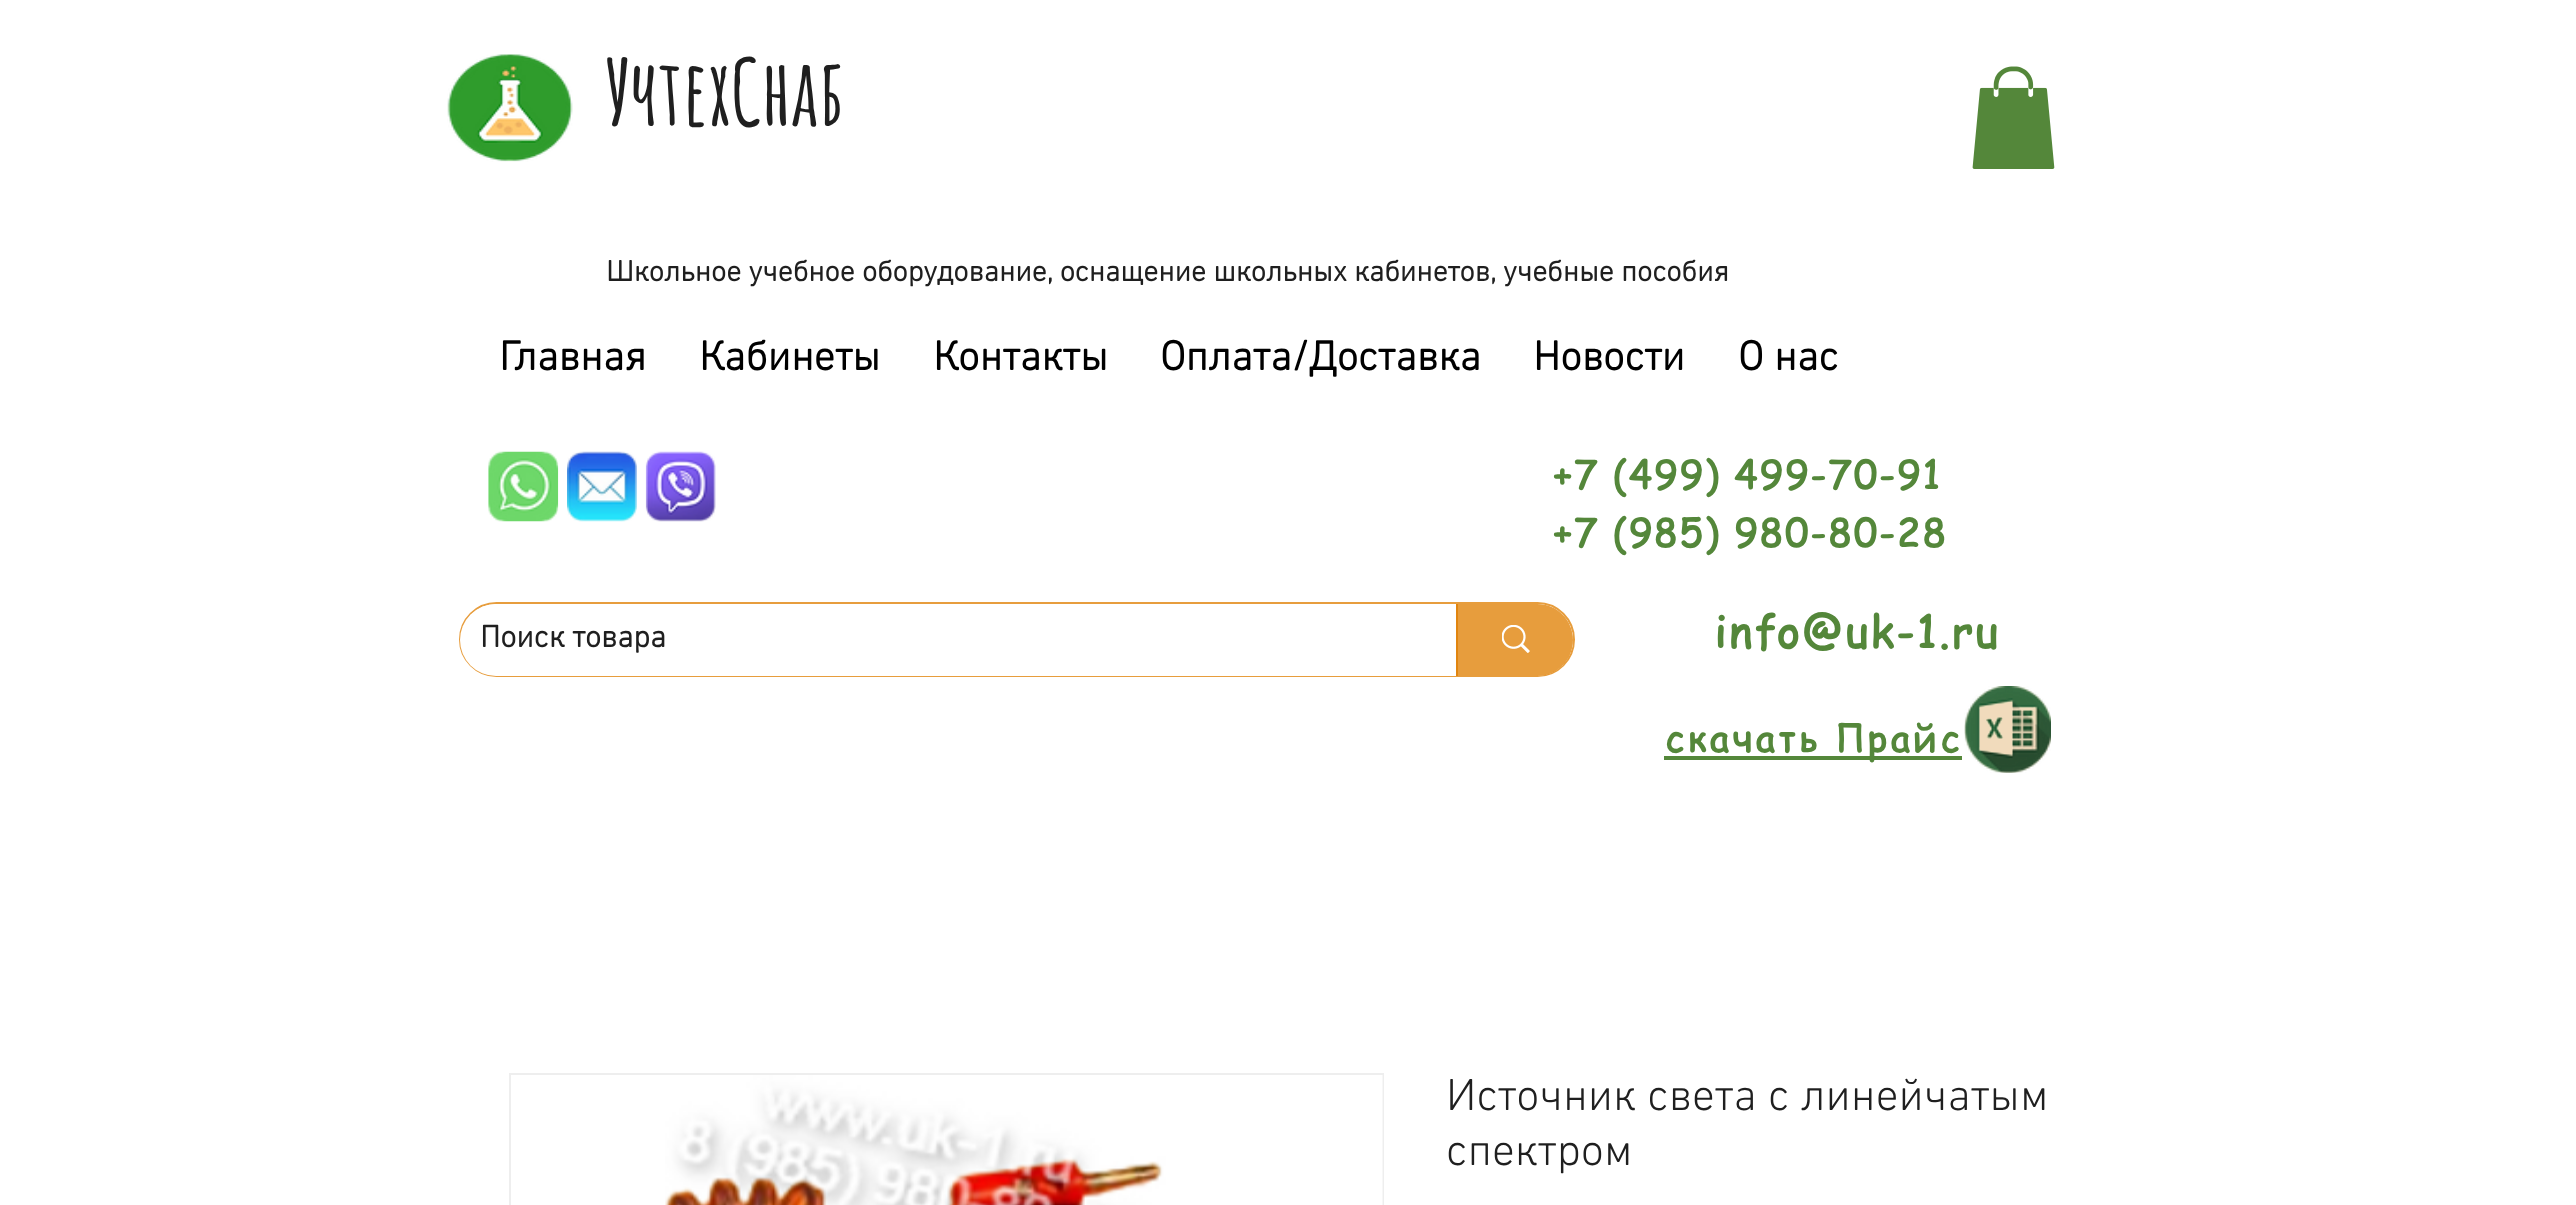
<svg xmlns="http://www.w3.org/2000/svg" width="2576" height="1205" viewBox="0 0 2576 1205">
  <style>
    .t1 { font: bold 91px Amatic SC; fill: #1f1f1f; }
    .t2 { font: bold 29.75px 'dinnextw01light'; fill: #1f1f1f; }
    .t3 { font: bold 42px 'dinnextw01light'; fill: #000; }
    .t4 { font: bold 38.5px 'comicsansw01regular'; letter-spacing: 1.9px; fill: #54873a; }
    .t5 { font: bold 31.5px 'dinnextw01light'; fill: #1f1f1f; }
    .t6 { font: bold 43.75px 'comicsansw01regular'; letter-spacing: 2.25px; fill: #54873a; }
    .t7 { font: bold 36.75px 'comicsansw01regular'; letter-spacing: 3.75px; fill: #54873a; }
    .t8 { font: 300 45.5px 'dinnextw01light'; fill: #1f1f1f; }
  </style>
  <rect width="100%" height="100%" fill="#fff"/>
  <image x="447" y="54" width="126" height="108" href="images/1.png"/>
  <text x="606" y="126" class="t1">УчтехСнаб</text>
  <image x="1972" y="66" width="83" height="103" href="images/2.png"/>
  <text x="606" y="281" class="t2">Школьное учебное оборудование, оснащение школьных кабинетов, учебные пособия</text>
  <text x="499" y="370" class="t3">Главная</text>
  <text x="699" y="370" class="t3">Кабинеты</text>
  <text x="933" y="370" class="t3">Контакты</text>
  <text x="1160" y="370" class="t3">Оплата/Доставка</text>
  <text x="1533" y="370" class="t3">Новости</text>
  <text x="1738" y="370" class="t3">О нас</text>
  <image x="488" y="451" width="71" height="71" href="images/3.png"/>
  <image x="567" y="451" width="70" height="71" href="images/4.png"/>
  <image x="645" y="451" width="71" height="71" href="images/5.png"/>
  <text x="1553" y="489" class="t4">+7 (499) 499-70-91</text>
  <text x="1553" y="547" class="t4">+7 (985) 980-80-28</text>
  <rect x="460" y="603" width="1114" height="73" rx="36.5" fill="none" stroke="#e79d3d" stroke-width="2"/>
  <rect x="460" y="604" width="1113" height="72" rx="36" fill="#fff"/>
  <text x="480" y="647" class="t5">Поиск товара</text>
  <path d="M1456 604H1537C1557 604 1573 620 1573 640C1573 660 1557 676 1537 676H1456Z" fill="#df7e00c2"/>
  <rect x="1456" y="604" width="2" height="72" fill="#e1850f"/>
  <image x="1502" y="625" width="28" height="28" href="images/6.png"/>
  <text x="1714" y="648" class="t6">info@uk-1.ru</text>
  <rect x="1664" y="756" width="298" height="4" fill="#54873a"/>
  <text x="1665" y="752" class="t7">скачать Прайс</text>
  <image x="1964" y="686" width="87" height="87" href="images/7.png"/>
  <rect x="510" y="1074" width="873" height="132" fill="none" stroke="#eee" stroke-width="2"/>
  <image x="665" y="1075" width="718" height="130" href="images/8.png"/>
  <text x="1446" y="1110" class="t8">Источник света с линейчатым</text>
  <text x="1446" y="1165" class="t8">спектром</text>
</svg>
